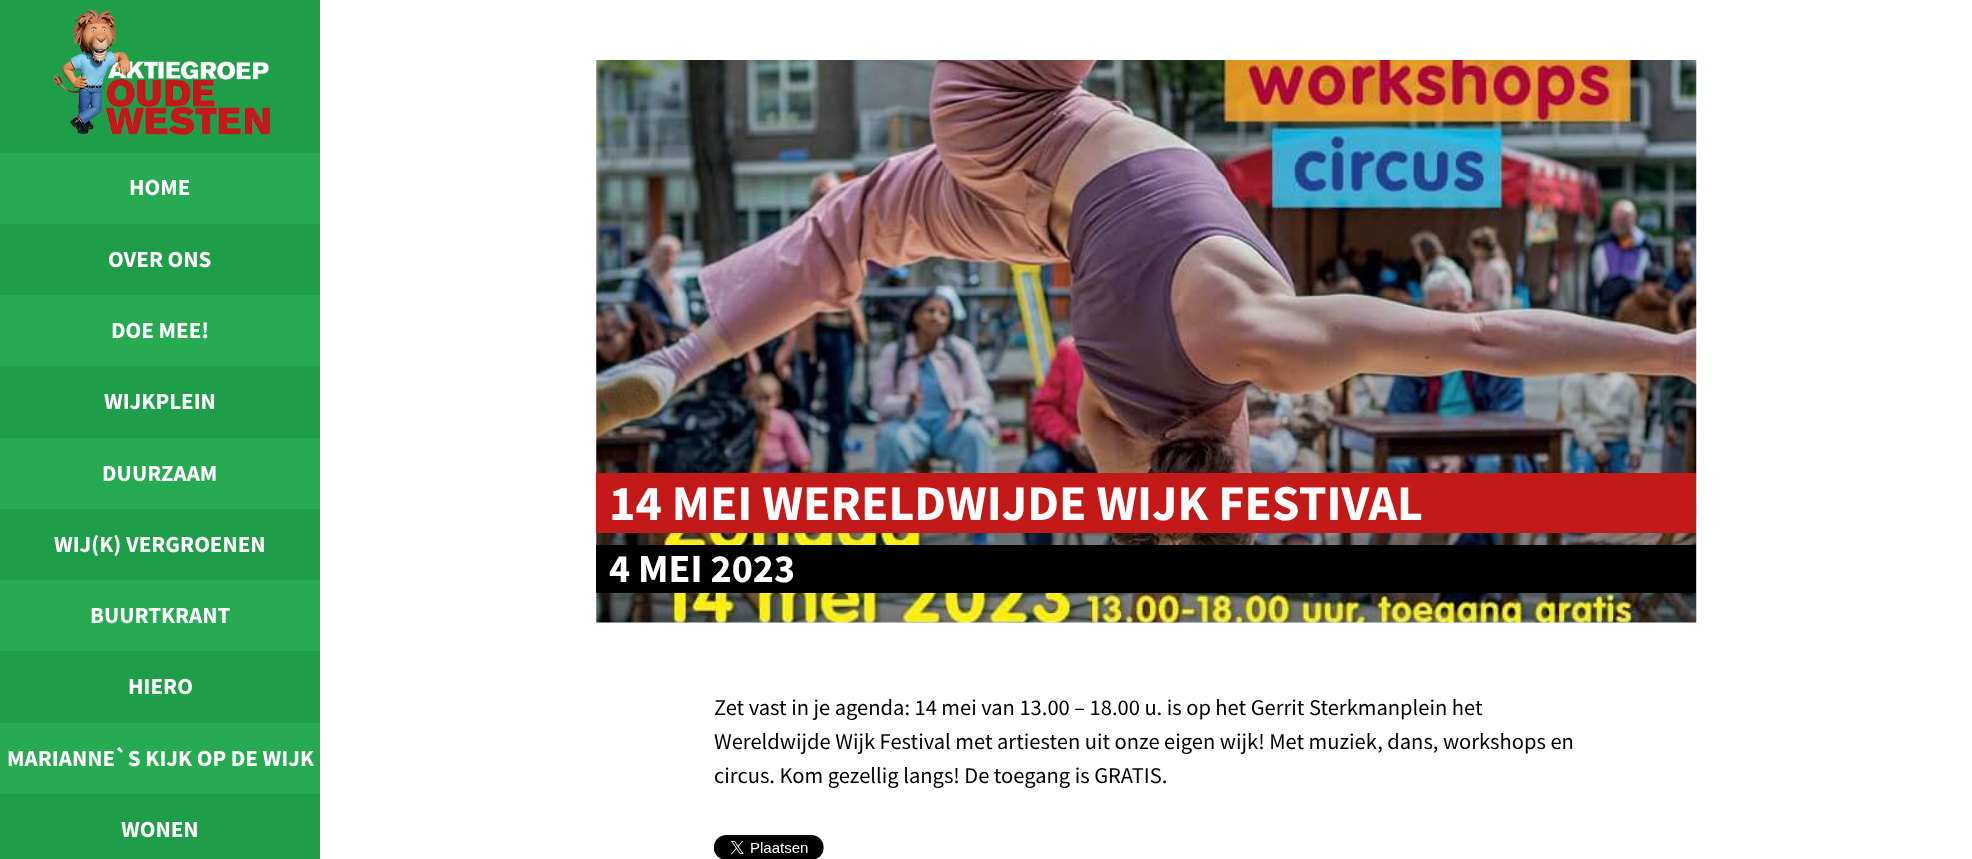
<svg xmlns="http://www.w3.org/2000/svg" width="1972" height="859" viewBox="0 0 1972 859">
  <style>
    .t1 { font: bold 23px Source Sans Pro; fill: #fff; }
    .t2 { font: bold 50px Source Sans Pro; fill: #fff; }
    .t3 { font: bold 40px Source Sans Pro; fill: #fff; }
    .t4 { font: 22.5px Source Sans Pro; fill: #000; }
  </style>
  <rect width="100%" height="100%" fill="#fff"/>
  <rect x="0" y="0" width="320" height="859" fill="#1f9e49"/>
  <image x="51" y="10" width="219" height="125" href="images/1.png"/>
  <rect x="0" y="153" width="320" height="71" fill="#26aa52"/>
  <text x="129" y="195" class="t1">HOME</text>
  <text x="108" y="267" class="t1">OVER ONS</text>
  <rect x="0" y="295" width="320" height="71" fill="#26aa52"/>
  <text x="111" y="338" class="t1">DOE MEE!</text>
  <text x="104" y="409" class="t1">WIJKPLEIN</text>
  <rect x="0" y="438" width="320" height="71" fill="#26aa52"/>
  <text x="102" y="481" class="t1">DUURZAAM</text>
  <text x="54" y="552" class="t1">WIJ(K) VERGROENEN</text>
  <rect x="0" y="580" width="320" height="71" fill="#26aa52"/>
  <text x="90" y="623" class="t1">BUURTKRANT</text>
  <text x="128" y="694" class="t1">HIERO</text>
  <rect x="0" y="723" width="320" height="71" fill="#26aa52"/>
  <text x="7" y="766" class="t1">MARIANNE`S KIJK OP DE WIJK</text>
  <text x="121" y="837" class="t1">WONEN</text>
  <image x="596" y="60" width="1101" height="563" href="images/2.png"/>
  <rect x="596" y="473" width="1100" height="60" fill="#c41919"/>
  <text x="609" y="520" class="t2">14 MEI WERELDWIJDE WIJK FESTIVAL</text>
  <rect x="596" y="545" width="1100" height="48" fill="#000"/>
  <text x="609" y="582" class="t3">4 MEI 2023</text>
  <text x="714" y="715" class="t4">Zet vast in je agenda: 14 mei van 13.00 – 18.00 u. is op het Gerrit Sterkmanplein het</text>
  <text x="714" y="749" class="t4">Wereldwijde Wijk Festival met artiesten uit onze eigen wijk! Met muziek, dans, workshops en</text>
  <text x="714" y="783" class="t4">circus. Kom gezellig langs! De toegang is GRATIS.</text>
  <image x="713" y="835" width="111" height="24" href="images/3.png"/>
</svg>
